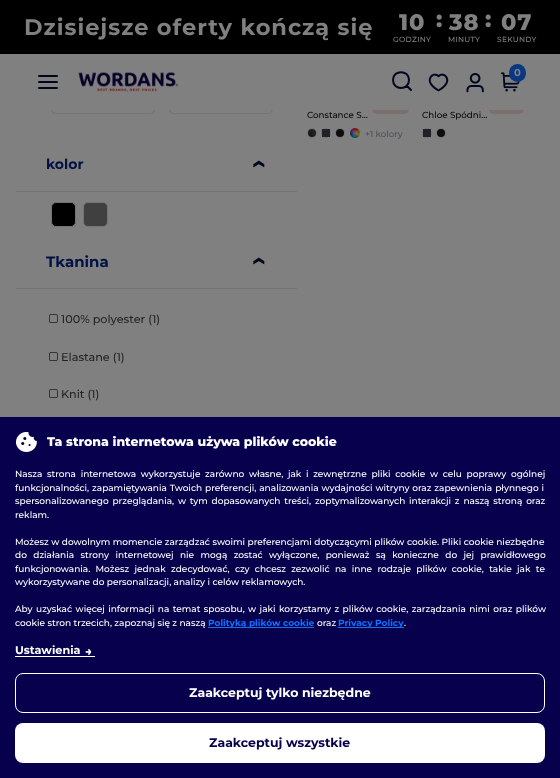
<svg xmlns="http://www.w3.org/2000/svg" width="560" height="778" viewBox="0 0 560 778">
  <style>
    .t1 { font: bold 22.5px Montserrat; letter-spacing: 1px; fill: #808080; }
    .t2 { font: 800 22.5px Montserrat; letter-spacing: 1px; fill: #808080; }
    .t3 { font: 500 7.5px Montserrat; letter-spacing: 0.25px; fill: #808080; }
    .t4 { font: bold 10px Montserrat; fill: #808080; }
    .t5 { font: 500 8.75px Montserrat; fill: #090909; }
    .t6 { font: 500 8.75px Montserrat; fill: #4e5258; }
    .t7 { font: bold 14px Montserrat; fill: #001145; }
    .t8 { font: bold 15px Montserrat; fill: #001145; }
    .t9 { font: 500 11.25px Montserrat; fill: #232323; }
    .t10 { font: 800 12.5px Montserrat; fill: #fff; }
    .t11 { font: 500 9px Montserrat; fill: #fff; }
    .t12 { font: bold 9px Montserrat; fill: #1170ff; }
    .t13 { font: bold 11.25px Montserrat; fill: #fff; }
    .t14 { font: bold 12.5px Montserrat; fill: #fff; }
    .t15 { font: bold 12.5px Montserrat; fill: #07014d; }
  </style>
  <rect width="100%" height="100%" fill="#808080"/>
  <rect x="372" y="96" width="37" height="18" rx="5" fill="#7e6d6d"/>
  <rect x="489" y="96" width="35" height="18" rx="5" fill="#7e6d6d"/>
  <path d="M56 84H73V114H56C53 114 51 112 51 109V89C51 86 53 84 56 84ZM56 85H73V113H56C54 113 52 111 52 109V89C52 87 54 85 56 85Z" fill="#73757a" fill-rule="evenodd"/>
  <path d="M73 84H150C153 84 155 86 155 89V109C155 112 153 114 150 114H73ZM73 85H150C152 85 154 87 154 89V109C154 111 152 113 150 113H73Z" fill="#73757a" fill-rule="evenodd"/>
  <path d="M174 84H191V114H174C171 114 169 112 169 109V89C169 86 171 84 174 84ZM174 85H191V113H174C172 113 170 111 170 109V89C170 87 172 85 174 85Z" fill="#73757a" fill-rule="evenodd"/>
  <path d="M191 84H268C271 84 273 86 273 89V109C273 112 271 114 268 114H191ZM191 85H268C270 85 272 87 272 89V109C272 111 270 113 268 113H191Z" fill="#73757a" fill-rule="evenodd"/>
  <rect x="51" y="84" width="473" height="26" fill="#808080"/>
  <rect x="0" y="0" width="560" height="54" fill="#000"/>
  <text x="24" y="35" class="t1">Dzisiejsze oferty kończą się</text>
  <text x="399" y="30" class="t2">10</text>
  <text x="393" y="42" class="t3">GODZINY</text>
  <text x="436" y="27" class="t2">:</text>
  <text x="449" y="30" class="t2">38</text>
  <text x="448" y="42" class="t3">MINUTY</text>
  <text x="485" y="27" class="t2">:</text>
  <text x="501" y="30" class="t2">07</text>
  <text x="497" y="42" class="t3">SEKUNDY</text>
  <path d="M39 82H57M39 76H57M39 88H57" fill="none" stroke="#00071d" stroke-width="2" stroke-linecap="round" stroke-linejoin="round"/>
  <image x="78" y="72" width="101" height="20" href="images/1.png"/>
  <path d="M411 90L406.5 85.5M409 80C409 90.5 393 90.5 393 80C393 69.5 409 69.5 409 80Z" fill="none" stroke="#00071d" stroke-width="2" stroke-linecap="round" stroke-linejoin="round"/>
  <image x="428" y="73" width="21" height="19" href="images/2.png"/>
  <image x="466" y="73" width="18" height="20" href="images/3.png"/>
  <image x="501" y="72" width="19" height="20" href="images/4.png"/>
  <rect x="509" y="64" width="17" height="18" rx="8.5" fill="#093880"/>
  <text x="514" y="76" class="t4">0</text>
  <text x="307" y="118" class="t5">Constance S…</text>
  <circle cx="312" cy="133" r="4.5" fill="none" stroke="#737476"/>
  <circle cx="326" cy="133" r="4.5" fill="none" stroke="#737476"/>
  <circle cx="340" cy="133" r="4.5" fill="none" stroke="#737476"/>
  <image x="350" y="128" width="10" height="10" href="images/5.png"/>
  <image x="308" y="129" width="8" height="8" href="images/6.png"/>
  <rect x="322" y="129" width="8" height="8" fill="#212127"/>
  <image x="336" y="129" width="8" height="8" href="images/7.png"/>
  <text x="365" y="137" class="t6">+1 kolory</text>
  <text x="422" y="118" class="t5">Chloe Spódni…</text>
  <circle cx="427" cy="133" r="4.5" fill="none" stroke="#737476"/>
  <circle cx="441" cy="133" r="4.5" fill="none" stroke="#737476"/>
  <rect x="423" y="129" width="8" height="8" fill="#212127"/>
  <image x="437" y="129" width="8" height="8" href="images/7.png"/>
  <text x="46" y="169" class="t7">kolor</text>
  <image x="253" y="160" width="12" height="8" href="images/8.png"/>
  <rect x="16" y="191" width="281" height="1" fill="#737476"/>
  <rect x="51.5" y="202.5" width="24" height="24" rx="4.5" fill="#000" stroke="#737476"/>
  <rect x="83.5" y="202.5" width="24" height="24" rx="4.5" fill="#404040" stroke="#737476"/>
  <text x="46" y="267" class="t8">Tkanina</text>
  <image x="253" y="257" width="12" height="8" href="images/8.png"/>
  <rect x="16" y="288" width="281" height="1" fill="#737476"/>
  <image x="49" y="314" width="9" height="9" href="images/9.png"/>
  <text x="61" y="323" class="t9">100% polyester (1)</text>
  <image x="49" y="352" width="9" height="9" href="images/9.png"/>
  <text x="61" y="361" class="t9">Elastane (1)</text>
  <image x="49" y="389" width="9" height="9" href="images/9.png"/>
  <text x="61" y="398" class="t9">Knit (1)</text>
  <rect x="0" y="417" width="560" height="361" fill="#07014d"/>
  <image x="16" y="432" width="21" height="20" href="images/10.png"/>
  <text x="47" y="446" class="t10">Ta strona internetowa używa plików cookie</text>
  <text x="15" y="477" word-spacing="2.25" class="t11">Nasza strona internetowa wykorzystuje zarówno własne, jak i zewnętrzne pliki cookie w celu poprawy ogólnej</text>
  <text x="15" y="491" word-spacing="0.5" class="t11">funkcjonalności, zapamiętywania Twoich preferencji, analizowania wydajności witryny oraz zapewnienia płynnego i</text>
  <text x="15" y="504" word-spacing="1.4" class="t11">spersonalizowanego przeglądania, w tym dopasowanych treści, zoptymalizowanych interakcji z naszą stroną oraz</text>
  <text x="15" y="518" class="t11">reklam.</text>
  <text x="15" y="545" word-spacing="0.1" class="t11">Możesz w dowolnym momencie zarządzać swoimi preferencjami dotyczącymi plików cookie. Pliki cookie niezbędne</text>
  <text x="15" y="558" word-spacing="4" class="t11">do działania strony internetowej nie mogą zostać wyłączone, ponieważ są konieczne do jej prawidłowego</text>
  <text x="15" y="572" word-spacing="2.9" class="t11">funkcjonowania. Możesz jednak zdecydować, czy chcesz zezwolić na inne rodzaje plików cookie, takie jak te</text>
  <text x="15" y="585" class="t11">wykorzystywane do personalizacji, analizy i celów reklamowych.</text>
  <text x="15" y="612" word-spacing="1" class="t11">Aby uzyskać więcej informacji na temat sposobu, w jaki korzystamy z plików cookie, zarządzania nimi oraz plików</text>
  <text x="15" y="626" class="t11">cookie stron trzecich, zapoznaj się z naszą</text>
  <rect x="208" y="627" width="106" height="1" fill="#1170ff"/>
  <text x="208" y="626" class="t12">Polityką plików cookie</text>
  <text x="317" y="626" class="t11">oraz</text>
  <rect x="338" y="627" width="66" height="1" fill="#1170ff"/>
  <text x="338" y="626" class="t12">Privacy Policy</text>
  <text x="404" y="626" class="t11">.</text>
  <text x="15" y="654" class="t13">Ustawienia</text>
  <image x="85" y="649" width="7" height="6" href="images/11.png"/>
  <rect x="15" y="656" width="80" height="1" fill="#fff"/>
  <rect x="15.5" y="673.5" width="529" height="39" rx="7.5" fill="none" stroke="#fff"/>
  <text x="189" y="697" class="t14">Zaakceptuj tylko niezbędne</text>
  <rect x="15" y="723" width="530" height="40" rx="8" fill="#fff"/>
  <text x="209" y="747" class="t15">Zaakceptuj wszystkie</text>
</svg>
